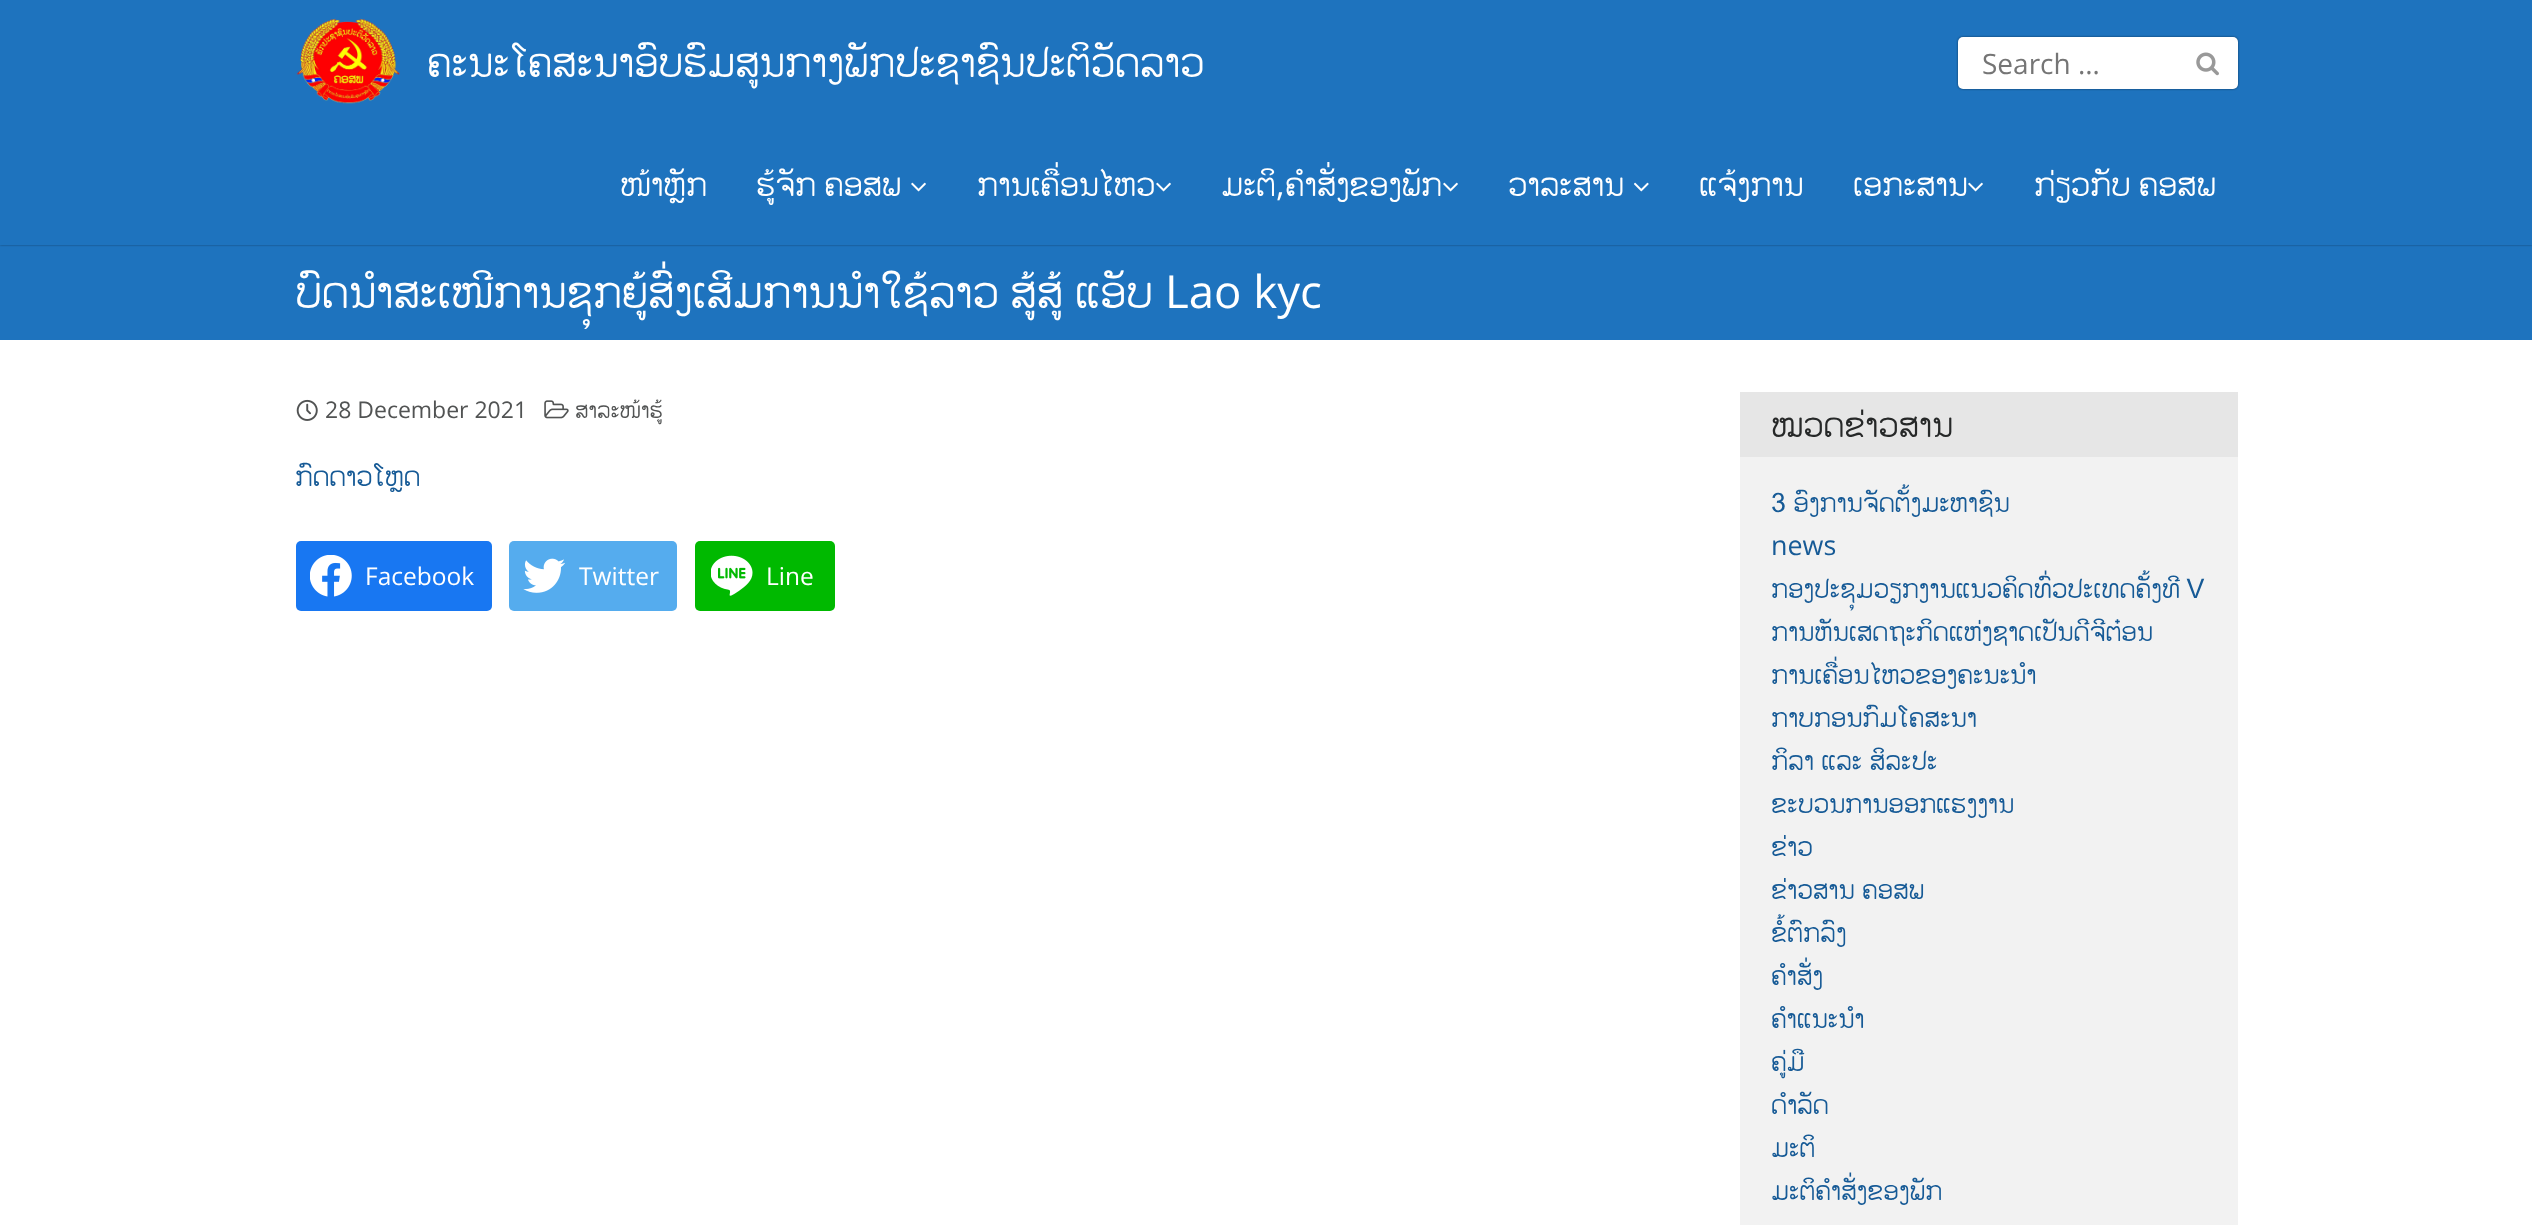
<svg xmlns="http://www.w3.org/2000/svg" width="2532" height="1225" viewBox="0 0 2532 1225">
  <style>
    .t1 { font: 42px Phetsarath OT; fill: #fff; }
    .t2 { font: 28px Open Sans; fill: #757575; }
    .t3 { font: 33.25px Phetsarath OT; fill: #fff; }
    .t4 { font: 33.25px Open Sans; fill: #fff; }
    .t5 { font: 45.5px Phetsarath OT; fill: #fff; }
    .t6 { font: 45.5px Open Sans; fill: #fff; }
    .t7 { font: 23px Open Sans; fill: #515353; }
    .t8 { font: 23px Phetsarath OT; fill: #515353; }
    .t9 { font: 28px Phetsarath OT; fill: #165a96; }
    .t10 { font: 24.5px Open Sans; fill: #fff; }
    .t11 { font: 35px Phetsarath OT; fill: #262828; }
    .t12 { font: 26.9px Phetsarath OT; fill: #165a96; }
    .t13 { font: 26.9px Open Sans; fill: #165a96; }
  </style>
  <rect width="100%" height="100%" fill="#fff"/>
  <rect x="0" y="245" width="2532" height="95" fill="#1e73be"/>
  <rect x="0" y="0" width="2532" height="245" fill="#00000066" filter="blur(1px)"/>
  <rect x="0" y="0" width="2532" height="245" fill="#1e73be"/>
  <image x="296" y="18" width="104" height="86" href="images/1.png"/>
  <text x="427" y="77" class="t1">ຄະນະໂຄສະນາອົບຮົມສູນກາງພັກປະຊາຊົນປະຕິວັດລາວ</text>
  <rect x="1958" y="37" width="280" height="52" rx="5" fill="#00000080" filter="blur(1px)"/>
  <rect x="1958" y="37" width="280" height="52" rx="5" fill="#fff"/>
  <text x="1982" y="74" class="t2">Search …</text>
  <image x="2196" y="52" width="23" height="24" href="images/2.png"/>
  <text x="620" y="196" class="t3">ໜ້າຫຼັກ</text>
  <text x="756" y="196" word-spacing="-2" class="t3">ຮູ້ຈັກ ຄອສພ</text>
  <image x="911" y="182" width="15" height="10" href="images/3.png"/>
  <text x="977" y="196" class="t3">ການເຄື່ອນໄຫວ</text>
  <image x="1156" y="182" width="15" height="10" href="images/3.png"/>
  <text x="1221" y="196" class="t3">ມະຕິ</text>
  <text x="1276" y="196" class="t4">,</text>
  <text x="1285" y="196" class="t3">ຄຳສັ່ງຂອງພັກ</text>
  <image x="1443" y="182" width="15" height="10" href="images/3.png"/>
  <text x="1508" y="196" class="t3">ວາລະສານ</text>
  <image x="1634" y="182" width="15" height="10" href="images/4.png"/>
  <text x="1699" y="196" class="t3">ແຈ້ງການ</text>
  <text x="1853" y="196" class="t3">ເອກະສານ</text>
  <image x="1968" y="182" width="15" height="10" href="images/3.png"/>
  <text x="2034" y="196" word-spacing="-2" class="t3">ກ່ຽວກັບ ຄອສພ</text>
  <text x="295" y="308" class="t5">ບົດນຳສະເໜີການຊຸກຍູ້ສົ່ງເສີມການນຳໃຊ້ລາວ</text>
  <text x="1010" y="308" class="t5">ສູ້ສູ້</text>
  <text x="1075" y="308" class="t5">ແອັບ</text>
  <text x="1165" y="308" class="t6">Lao kyc</text>
  <image x="296" y="399" width="22" height="22" href="images/5.png"/>
  <text x="325" y="418" class="t7">28 December 2021</text>
  <image x="544" y="400" width="25" height="19" href="images/6.png"/>
  <text x="575" y="418" class="t8">ສາລະໜ້າຮູ້</text>
  <text x="295" y="486" class="t9">ກົດດາວໂຫຼດ</text>
  <rect x="296" y="541" width="196" height="70" rx="5" fill="#1877f2"/>
  <image x="310" y="555" width="42" height="42" href="images/7.png"/>
  <text x="365" y="585" class="t10">Facebook</text>
  <rect x="509" y="541" width="168" height="70" rx="5" fill="#55acee"/>
  <image x="523" y="558" width="42" height="35" href="images/8.png"/>
  <text x="579" y="585" class="t10">Twitter</text>
  <rect x="695" y="541" width="140" height="70" rx="5" fill="#00b900"/>
  <image x="711" y="555" width="42" height="41" href="images/9.png"/>
  <text x="766" y="585" class="t10">Line</text>
  <rect x="1740" y="457" width="498" height="768" fill="#f2f2f2"/>
  <rect x="1740" y="392" width="498" height="65" fill="#e6e6e6"/>
  <text x="1771" y="437" class="t11">ໝວດຂ່າວສານ</text>
  <text x="1771" y="512" word-spacing="-1" class="t12">3 ອົງການຈັດຕັ້ງມະຫາຊົນ</text>
  <text x="1771" y="555" class="t13">news</text>
  <text x="1771" y="598" word-spacing="-2" class="t12">ກອງປະຊຸມວຽກງານແນວຄິດທົ່ວປະເທດຄັ້ງທີ V</text>
  <text x="1771" y="641" class="t12">ການຫັນເສດຖະກິດແຫ່ງຊາດເປັນດີຈີຕ໋ອນ</text>
  <text x="1771" y="684" class="t12">ການເຄື່ອນໄຫວຂອງຄະນະນຳ</text>
  <text x="1771" y="727" class="t12">ກາບກອນກົມໂຄສະນາ</text>
  <text x="1771" y="770" word-spacing="-1" class="t12">ກິລາ ແລະ ສິລະປະ</text>
  <text x="1771" y="813" class="t12">ຂະບວນການອອກແຮງງານ</text>
  <text x="1771" y="856" class="t12">ຂ່າວ</text>
  <text x="1771" y="899" word-spacing="-1" class="t12">ຂ່າວສານ ຄອສພ</text>
  <text x="1771" y="942" class="t12">ຂໍ້ຕົກລົງ</text>
  <text x="1771" y="985" class="t12">ຄຳສັ່ງ</text>
  <text x="1771" y="1028" class="t12">ຄຳແນະນຳ</text>
  <text x="1771" y="1071" class="t12">ຄູ່ມື</text>
  <text x="1771" y="1114" class="t12">ດຳລັດ</text>
  <text x="1771" y="1157" class="t12">ມະຕິ</text>
  <text x="1771" y="1200" class="t12">ມະຕິຄຳສັ່ງຂອງພັກ</text>
</svg>
